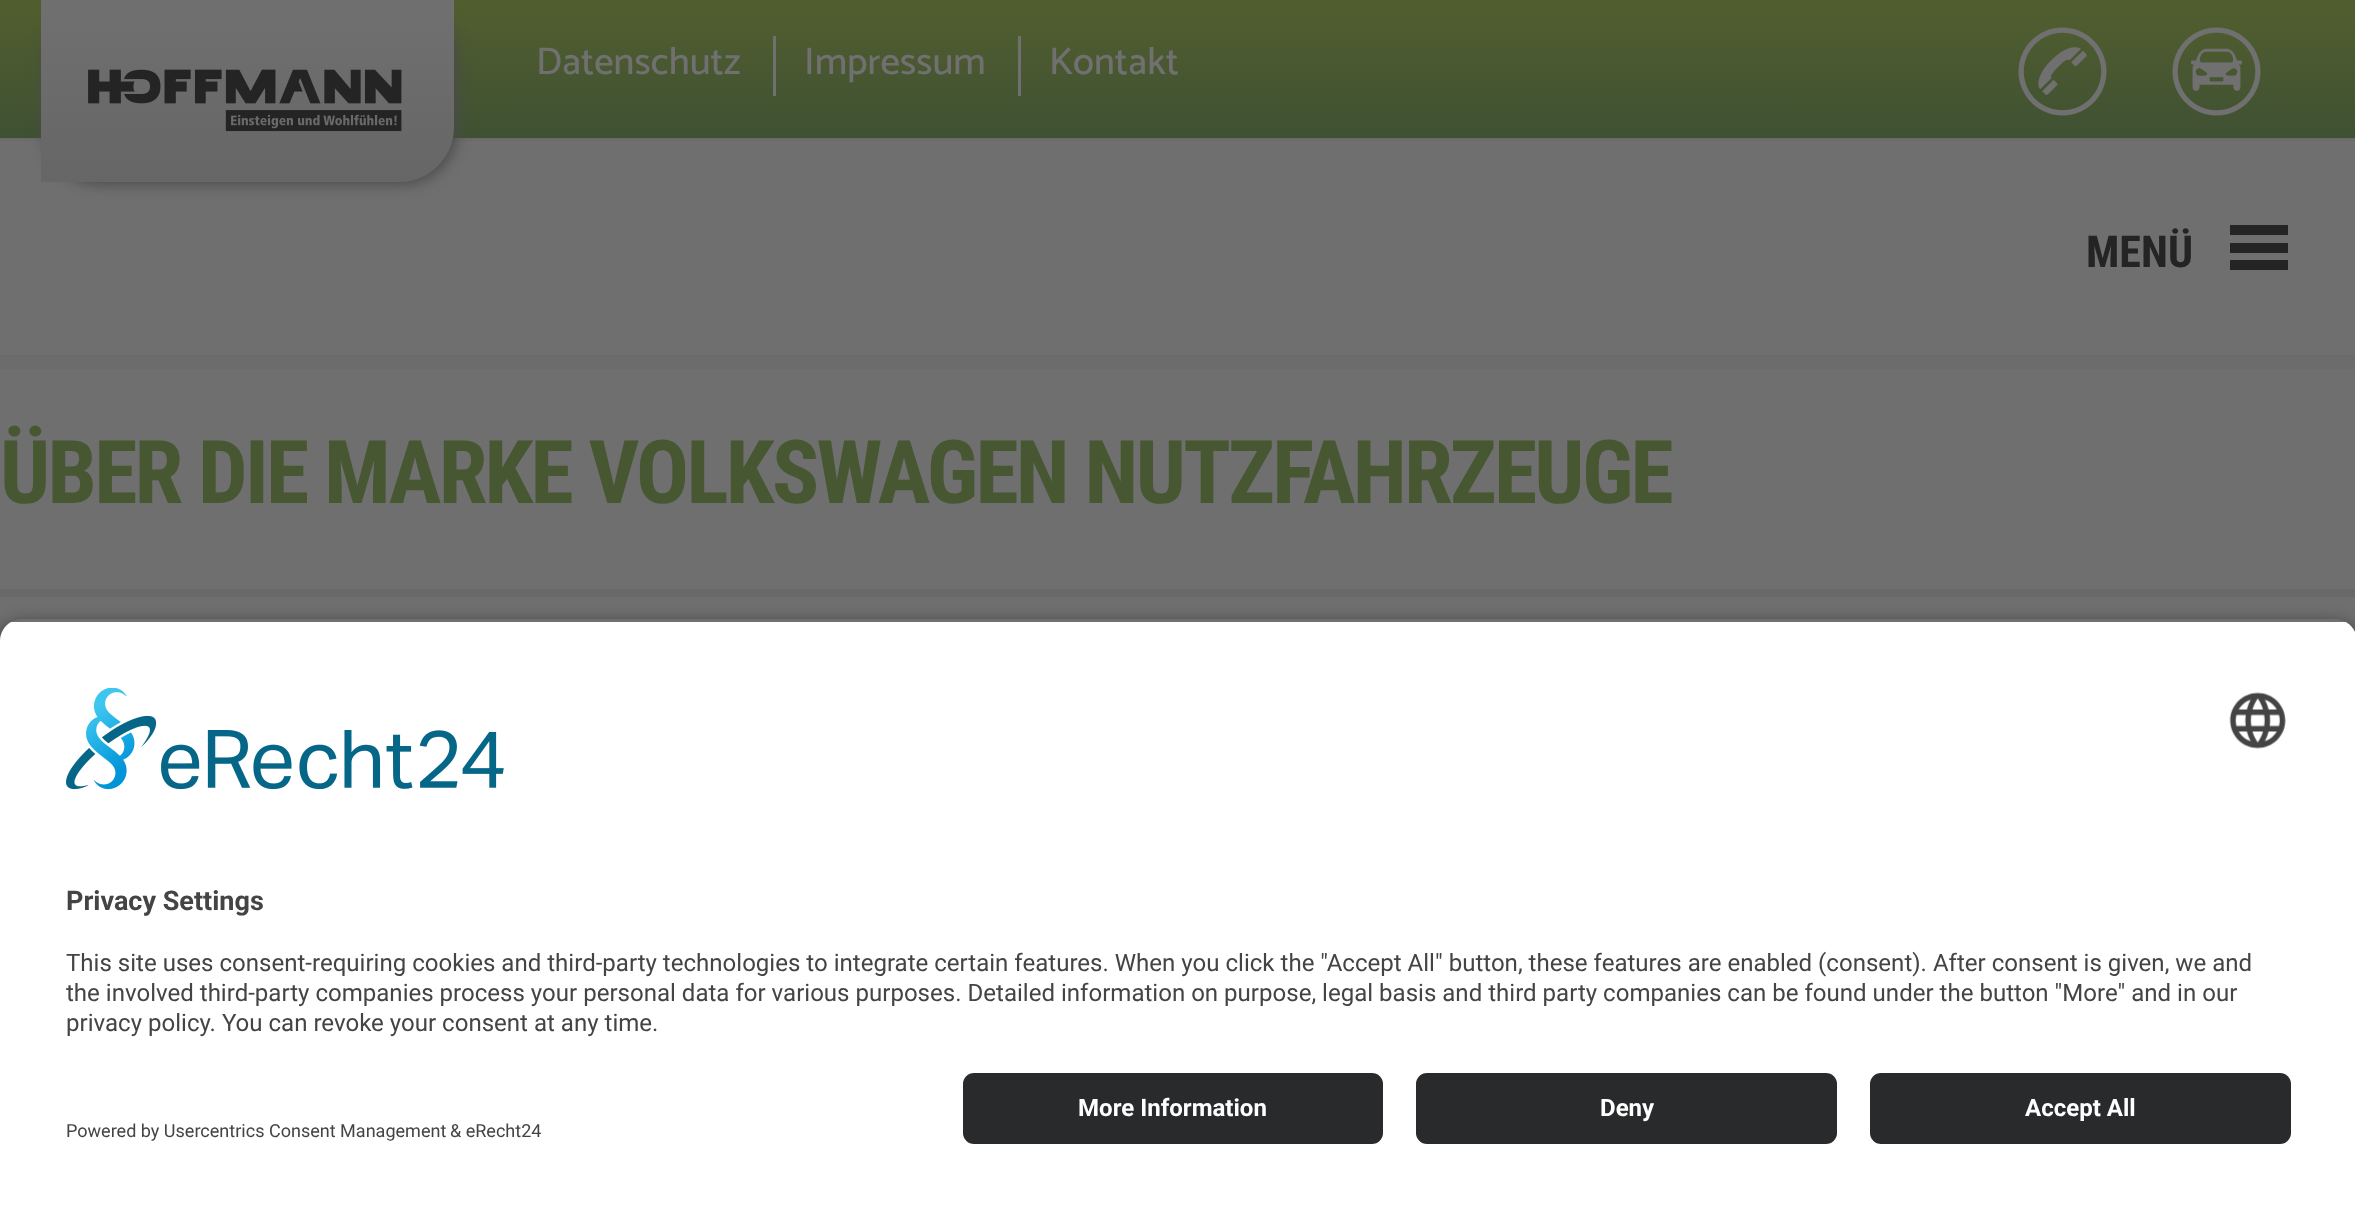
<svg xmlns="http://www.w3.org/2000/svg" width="2355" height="1210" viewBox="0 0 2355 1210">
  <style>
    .t1 { font: 500 38.5px Catamaran; fill: #707070; }
    .t2 { font: bold 44px Roboto Condensed; fill: #242424; }
    .t3 { font: bold 88px Roboto Condensed; letter-spacing: -2.75px; fill: #475731; }
    .t4 { font: bold 27px Roboto; fill: #444; }
    .t5 { font: 24.05px Roboto; fill: #444; }
    .t6 { font: bold 24.05px Roboto; fill: #fff; }
    .t7 { font: 18.05px Roboto; fill: #444; }
  </style>
  <defs>
    <linearGradient id="g1" gradientUnits="userSpaceOnUse" x1="1178" y1="0" x2="1178" y2="138"><stop offset="0.1" stop-color="#505d2f"/><stop offset="1" stop-color="#3f5133"/></linearGradient>
    <linearGradient id="g2" gradientUnits="userSpaceOnUse" x1="248" y1="0" x2="248" y2="182"><stop offset="0" stop-color="#707070"/><stop offset="1" stop-color="#666"/></linearGradient>
    <clipPath id="clip1"><path d="M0 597H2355V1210H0ZM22 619H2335C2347 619 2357 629 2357 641V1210H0V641C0 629 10 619 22 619Z" clip-rule="evenodd"/></clipPath>
    <clipPath id="clip2"><path d="M22 619H2335C2347 619 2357 629 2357 641V1051H0V641C0 629 10 619 22 619Z"/></clipPath>
  </defs>
  <rect width="100%" height="100%" fill="#6f6f6f"/>
  <rect x="0" y="0" width="2355" height="138" fill="url(#g1)"/>
  <rect x="0" y="138" width="2355" height="3" fill="#6b6b6b"/>
  <rect x="44" y="3" width="413" height="181" rx="55" fill="#4a4a4a" filter="blur(7px)"/>
  <path d="M41 0H454V127C454 157.5 429.5 182 399 182H41Z" fill="url(#g2)"/>
  <image x="88" y="69" width="314" height="63" href="images/1.png"/>
  <text x="536" y="74" class="t1">Datenschutz</text>
  <rect x="773" y="36" width="3" height="60" fill="#707070"/>
  <text x="804" y="74" class="t1">Impressum</text>
  <rect x="1018" y="36" width="3" height="60" fill="#707070"/>
  <text x="1049" y="74" class="t1">Kontakt</text>
  <image x="2018" y="27" width="89" height="89" href="images/2.png"/>
  <image x="2172" y="27" width="89" height="89" href="images/3.png"/>
  <path d="M0 358V369H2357V149V358Z" fill="#6c6c6c"/>
  <rect x="0" y="355" width="2355" height="3" fill="#6b6b6b"/>
  <text x="2086" y="267" class="t2">MENÜ</text>
  <path d="M2288 270H2230V260H2288ZM2288 253H2230V243H2288ZM2288 235H2230V225H2288Z" fill="#242424"/>
  <text x="0" y="503" class="t3">ÜBER DIE MARKE VOLKSWAGEN NUTZFAHRZEUGE</text>
  <rect x="0" y="589" width="2355" height="8" fill="#696969"/>
  <g clip-path="url(#clip1)">
    <rect x="0" y="627" width="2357" height="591" rx="22" fill="#000000cc" filter="blur(9.5px)"/>
  </g>
  <g clip-path="url(#clip2)">
    <rect x="0" y="622" width="2355" height="429" fill="#fff"/>
  </g>
  <image x="66" y="688" width="438" height="102" href="images/4.png"/>
  <image x="2229" y="692" width="57" height="57" href="images/5.png"/>
  <text x="66" y="910" class="t4">Privacy Settings</text>
  <text x="66" y="971" class="t5">This site uses consent-requiring cookies and third-party technologies to integrate certain features. When you click the "Accept All" button, these features are enabled (consent). After consent is given, we and</text>
  <text x="66" y="1001" class="t5">the involved third-party companies process your personal data for various purposes. Detailed information on purpose, legal basis and third party companies can be found under the button "More" and in our</text>
  <text x="66" y="1031" class="t5">privacy policy. You can revoke your consent at any time.</text>
  <rect x="0" y="1051" width="2355" height="159" fill="#fff"/>
  <rect x="963" y="1073" width="420" height="71" rx="11" fill="#292a2b"/>
  <text x="1078" y="1116" class="t6">More Information</text>
  <rect x="1416" y="1073" width="421" height="71" rx="11" fill="#292a2b"/>
  <text x="1600" y="1116" class="t6">Deny</text>
  <rect x="1870" y="1073" width="421" height="71" rx="11" fill="#292a2b"/>
  <text x="2025" y="1116" class="t6">Accept All</text>
  <text x="66" y="1137" class="t7">Powered by Usercentrics Consent Management</text>
  <text x="450" y="1137" class="t7">&amp; eRecht24</text>
</svg>
